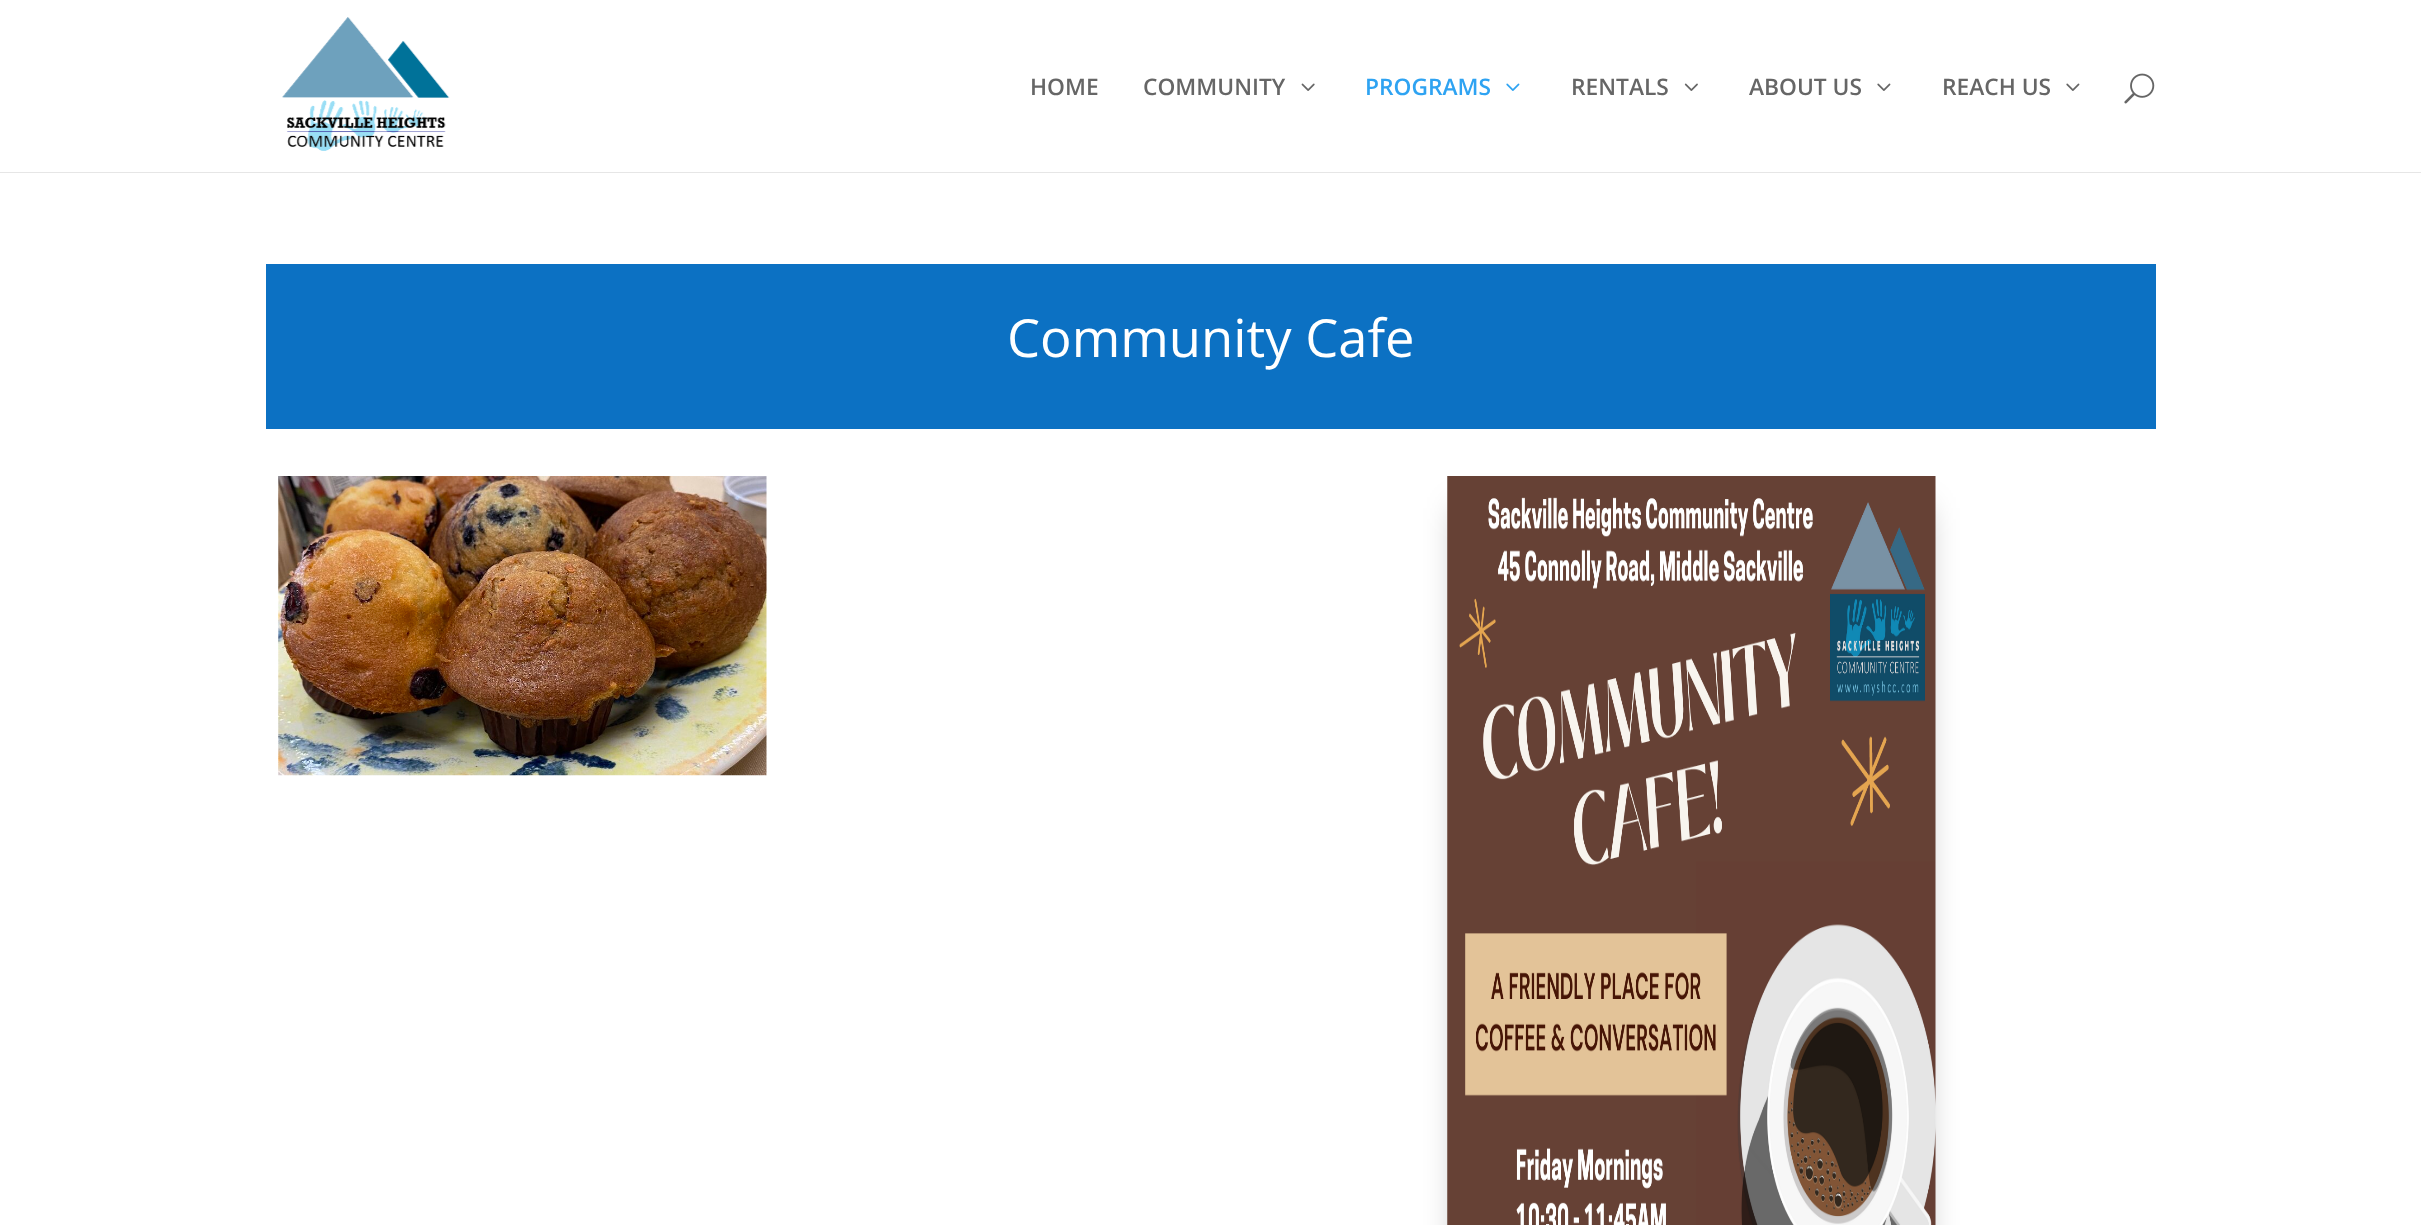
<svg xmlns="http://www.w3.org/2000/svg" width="2421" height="1225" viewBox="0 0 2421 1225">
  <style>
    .t1 { font: 600 22.75px Open Sans; fill: #666; }
    .t2 { font: 600 22.75px Open Sans; fill: #2ea3f2; }
    .t3 { font: 52.5px Open Sans; fill: #fff; }
  </style>
  <rect width="100%" height="100%" fill="#fff"/>
  <rect x="0" y="172" width="2421" height="1" fill="#e6e6e6"/>
  <image x="282" y="17" width="168" height="134" href="images/1.png"/>
  <text x="1030" y="95" class="t1">HOME</text>
  <text x="1143" y="95" class="t1">COMMUNITY</text>
  <image x="1301" y="83" width="14" height="8" href="images/2.png"/>
  <text x="1365" y="95" class="t2">PROGRAMS</text>
  <image x="1506" y="83" width="14" height="8" href="images/3.png"/>
  <text x="1571" y="95" class="t1">RENTALS</text>
  <image x="1684" y="83" width="14" height="8" href="images/4.png"/>
  <text x="1749" y="95" class="t1">ABOUT US</text>
  <image x="1877" y="83" width="14" height="8" href="images/5.png"/>
  <text x="1942" y="95" class="t1">REACH US</text>
  <image x="2066" y="83" width="14" height="8" href="images/5.png"/>
  <image x="2124" y="73" width="31" height="31" href="images/6.png"/>
  <rect x="266" y="264" width="1890" height="165" fill="#0c71c3"/>
  <text x="1007" y="357" class="t3">Community Cafe</text>
  <image x="278" y="476" width="489" height="300" href="images/7.png"/>
  <rect x="1458" y="508" width="467" height="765" fill="#0000004d" filter="blur(16px)"/>
  <image x="1447" y="476" width="489" height="749" href="images/8.png"/>
</svg>
